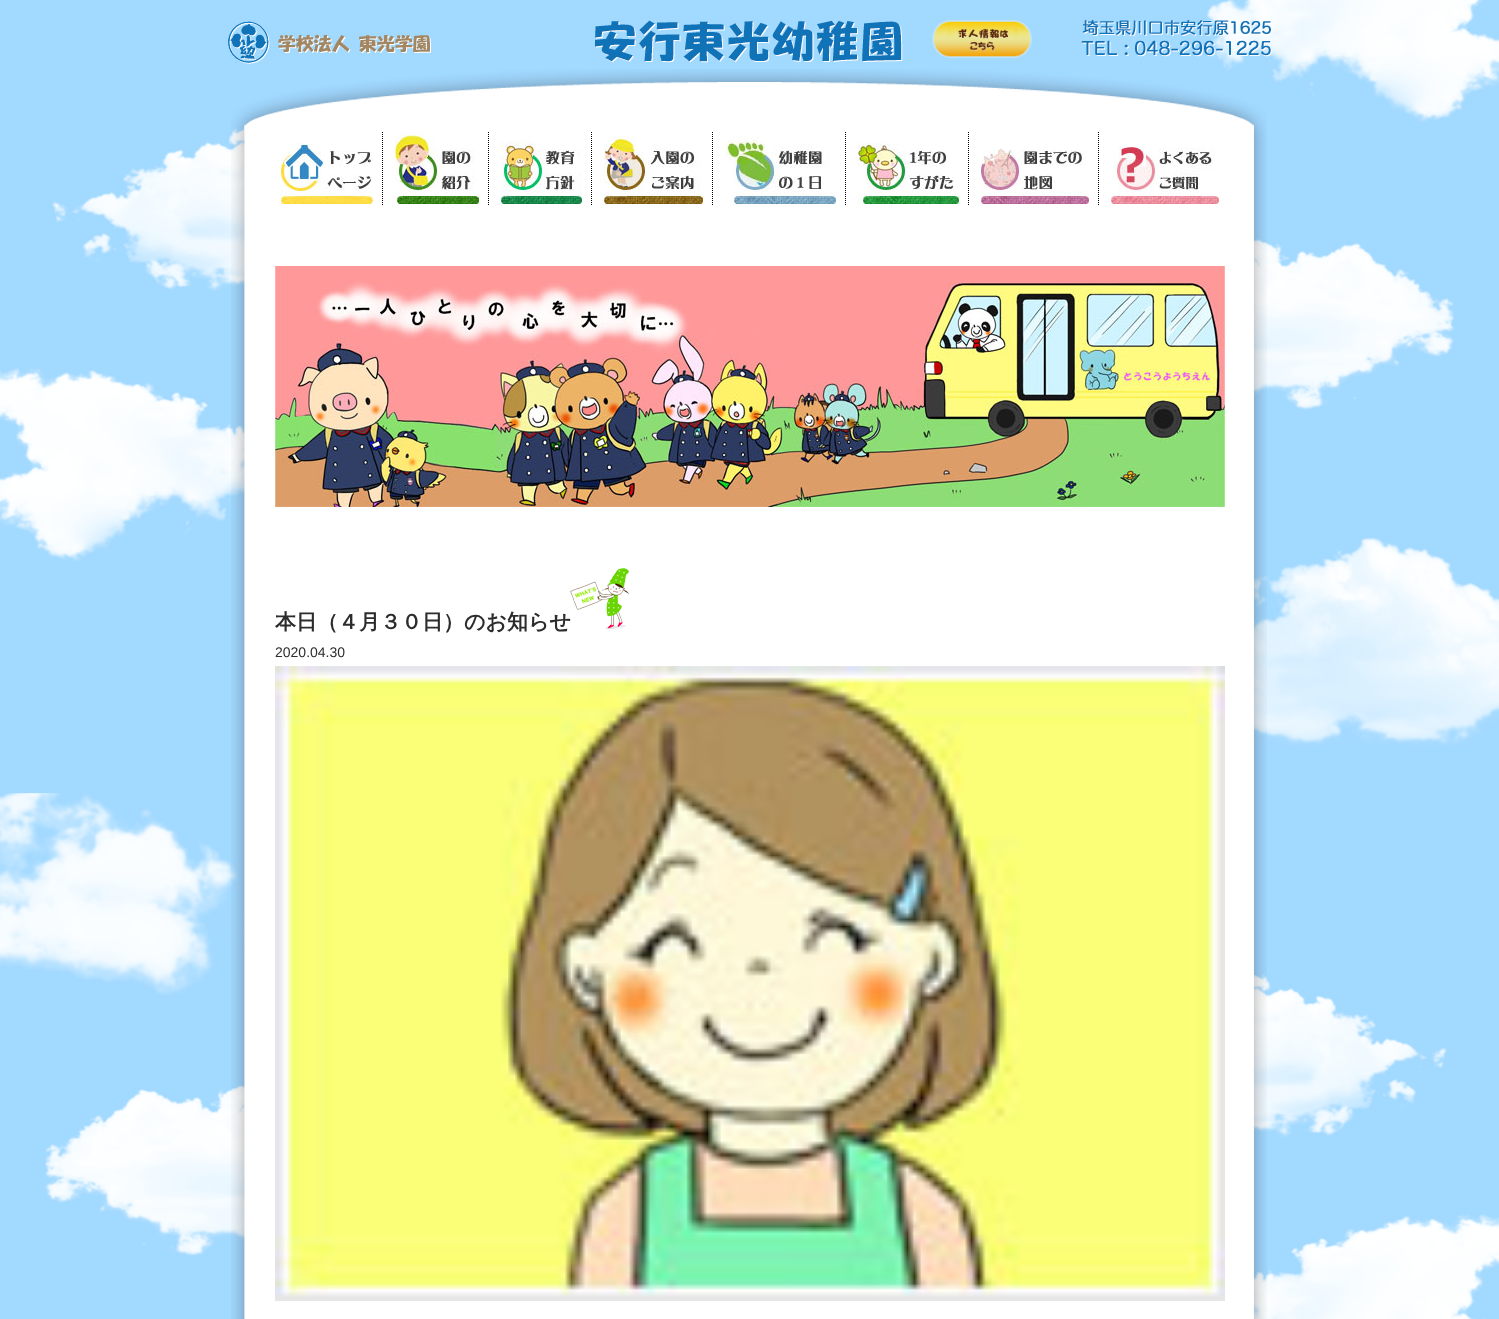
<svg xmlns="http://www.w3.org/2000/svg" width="1499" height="1319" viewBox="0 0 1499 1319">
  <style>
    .t1 { font: bold 21px WenQuanYi Zen Hei; fill: #2c2c2c; }
    .t2 { font: 14px Liberation Sans; fill: #2c2c2c; }
  </style>
  <rect width="100%" height="100%" fill="#a2d9ff"/>
  <image x="0" y="0" width="1499" height="1319" href="images/1.png"/>
  <image x="231" y="69" width="1036" height="167" href="images/2.png"/>
  <image x="228" y="20" width="203" height="44" href="images/3.png"/>
  <image x="595" y="20" width="308" height="43" href="images/4.png"/>
  <image x="932" y="20" width="100" height="38" href="images/5.png"/>
  <image x="1081" y="20" width="191" height="37" href="images/6.png"/>
  <path d="M382.5 132V206" fill="none" stroke="#000" stroke-dasharray="1 1"/>
  <image x="281" y="143" width="92" height="61" href="images/7.png"/>
  <path d="M488.5 132V206" fill="none" stroke="#000" stroke-dasharray="1 1"/>
  <image x="395" y="132" width="84" height="72" href="images/8.png"/>
  <path d="M591.5 132V206" fill="none" stroke="#000" stroke-dasharray="1 1"/>
  <image x="501" y="141" width="81" height="63" href="images/9.png"/>
  <path d="M712.5 132V206" fill="none" stroke="#000" stroke-dasharray="1 1"/>
  <image x="604" y="136" width="99" height="68" href="images/10.png"/>
  <path d="M845.5 132V206" fill="none" stroke="#000" stroke-dasharray="1 1"/>
  <image x="725" y="136" width="111" height="68" href="images/11.png"/>
  <path d="M968.5 132V206" fill="none" stroke="#000" stroke-dasharray="1 1"/>
  <image x="858" y="141" width="101" height="63" href="images/12.png"/>
  <path d="M1098.5 132V206" fill="none" stroke="#000" stroke-dasharray="1 1"/>
  <image x="981" y="148" width="108" height="56" href="images/13.png"/>
  <image x="1111" y="147" width="108" height="57" href="images/14.png"/>
  <image x="231" y="236" width="1036" height="1083" href="images/15.png"/>
  <image x="275" y="266" width="950" height="241" href="images/16.png"/>
  <text x="275" y="629" class="t1">本日（４月３０日）のお知らせ</text>
  <image x="570" y="568" width="59" height="61" href="images/17.png"/>
  <text x="275" y="657" class="t2">2020.04.30</text>
  <image x="275" y="666" width="950" height="635" href="images/18.png"/>
</svg>
